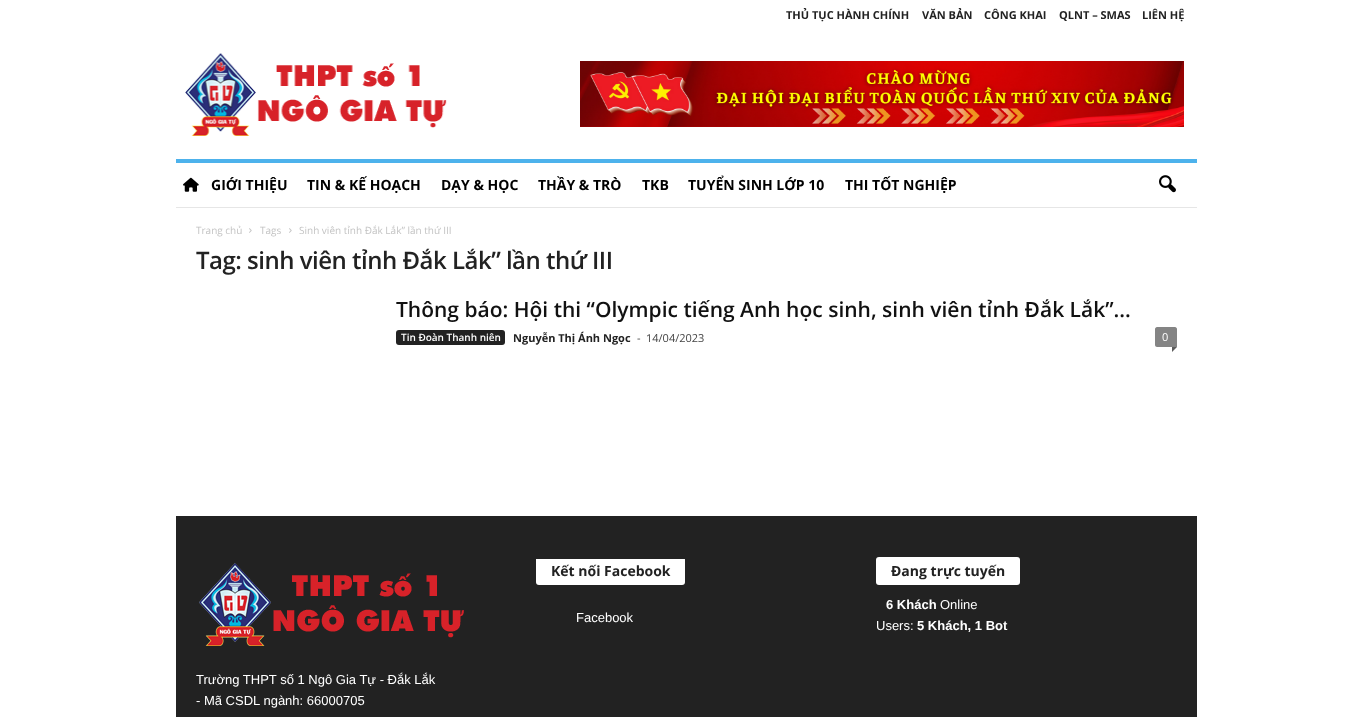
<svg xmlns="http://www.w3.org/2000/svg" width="1372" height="717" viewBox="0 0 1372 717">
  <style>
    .t1 { font: bold 11px Open Sans; fill: #222; }
    .t2 { font: bold 14px Open Sans; fill: #000; }
    .t3 { font: 10px Open Sans; fill: #c3c3c3; }
    .t4 { font: 600 24px Open Sans; letter-spacing: -0.5px; fill: #222; }
    .t5 { font: 600 21px Open Sans; fill: #111; }
    .t6 { font: 600 10px Open Sans; fill: #fff; }
    .t7 { font: 11px Open Sans; fill: #444; }
    .t8 { font: 11px Open Sans; fill: #fff; }
    .t9 { font: bold 14px Open Sans; fill: #222; }
    .t10 { font: 13px Liberation Sans; fill: #fff; }
    .t11 { font: bold 13px Liberation Sans; fill: #fff; }
  </style>
  <defs>
    <clipPath id="clip1"><rect x="516" y="559" width="340" height="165"/></clipPath>
  </defs>
  <rect width="100%" height="100%" fill="#fff"/>
  <text x="786" y="19" class="t1">THỦ TỤC HÀNH CHÍNH</text>
  <text x="922" y="19" class="t1">VĂN BẢN</text>
  <text x="984" y="19" class="t1">CÔNG KHAI</text>
  <text x="1059" y="19" class="t1">QLNT – SMAS</text>
  <text x="1142" y="19" class="t1">LIÊN HỆ</text>
  <image x="185" y="53" width="262" height="83" href="images/1.png"/>
  <image x="580" y="61" width="604" height="66" href="images/2.png"/>
  <rect x="176" y="207" width="1021" height="1" fill="#e6e6e6"/>
  <rect x="176" y="159" width="1021" height="4" fill="#4db2ec"/>
  <image x="183" y="177" width="16" height="15" href="images/3.png"/>
  <text x="211" y="190" class="t2">GIỚI THIỆU</text>
  <text x="307" y="190" class="t2">TIN &amp; KẾ HOẠCH</text>
  <text x="441" y="190" class="t2">DẠY &amp; HỌC</text>
  <text x="538" y="190" class="t2">THẦY &amp; TRÒ</text>
  <text x="642" y="190" class="t2">TKB</text>
  <text x="688" y="190" class="t2">TUYỂN SINH LỚP 10</text>
  <text x="845" y="190" class="t2">THI TỐT NGHIỆP</text>
  <image x="1159" y="175" width="17" height="18" href="images/4.png"/>
  <text x="196" y="234" class="t3">Trang chủ</text>
  <image x="249" y="228" width="3" height="5" href="images/5.png"/>
  <text x="260" y="234" class="t3">Tags</text>
  <image x="289" y="228" width="3" height="5" href="images/5.png"/>
  <text x="299" y="234" class="t3">Sinh viên tỉnh Đắk Lắk” lần thứ III</text>
  <text x="196" y="269" class="t4">Tag: sinh viên tỉnh Đắk Lắk” lần thứ III</text>
  <text x="396" y="317" class="t5">Thông báo: Hội thi “Olympic tiếng Anh học sinh, sinh viên tỉnh Đắk Lắk”...</text>
  <rect x="396" y="330" width="109" height="15" rx="3" fill="#222"/>
  <text x="401" y="341" class="t6">Tin Đoàn Thanh niên</text>
  <text x="513" y="342" class="t1">Nguyễn Thị Ánh Ngọc</text>
  <text x="637" y="342" class="t7">-</text>
  <text x="646" y="342" class="t7">14/04/2023</text>
  <path d="M1157 327H1175C1176 327 1177 328 1177 329V347H1157C1156 347 1155 346 1155 345V329C1155 328 1156 327 1157 327Z" fill="#848484"/>
  <text x="1162" y="341" class="t8">0</text>
  <path d="M1172 347H1177L1172 352Z" fill="#5b5b5b"/>
  <rect x="176" y="516" width="1021" height="201" fill="#222"/>
  <g clip-path="url(#clip1)">
    <rect x="536" y="557" width="149" height="28" rx="3" fill="#fff"/>
  </g>
  <text x="551" y="576" class="t9">Kết nối Facebook</text>
  <text x="576" y="622" class="t10">Facebook</text>
  <rect x="876" y="557" width="144" height="28" rx="3" fill="#fff"/>
  <text x="891" y="576" class="t9">Đang trực tuyến</text>
  <text x="886" y="609" class="t11">6 Khách</text>
  <text x="940" y="609" class="t10">Online</text>
  <text x="876" y="630" class="t10">Users:</text>
  <text x="917" y="630" class="t11">5 Khách, 1 Bot</text>
  <image x="199" y="563" width="265" height="83" href="images/6.png"/>
  <text x="196" y="684" class="t10">Trường THPT số 1 Ngô Gia Tự - Đắk Lắk</text>
  <text x="196" y="705" class="t10">- Mã CSDL ngành: 66000705</text>
</svg>
